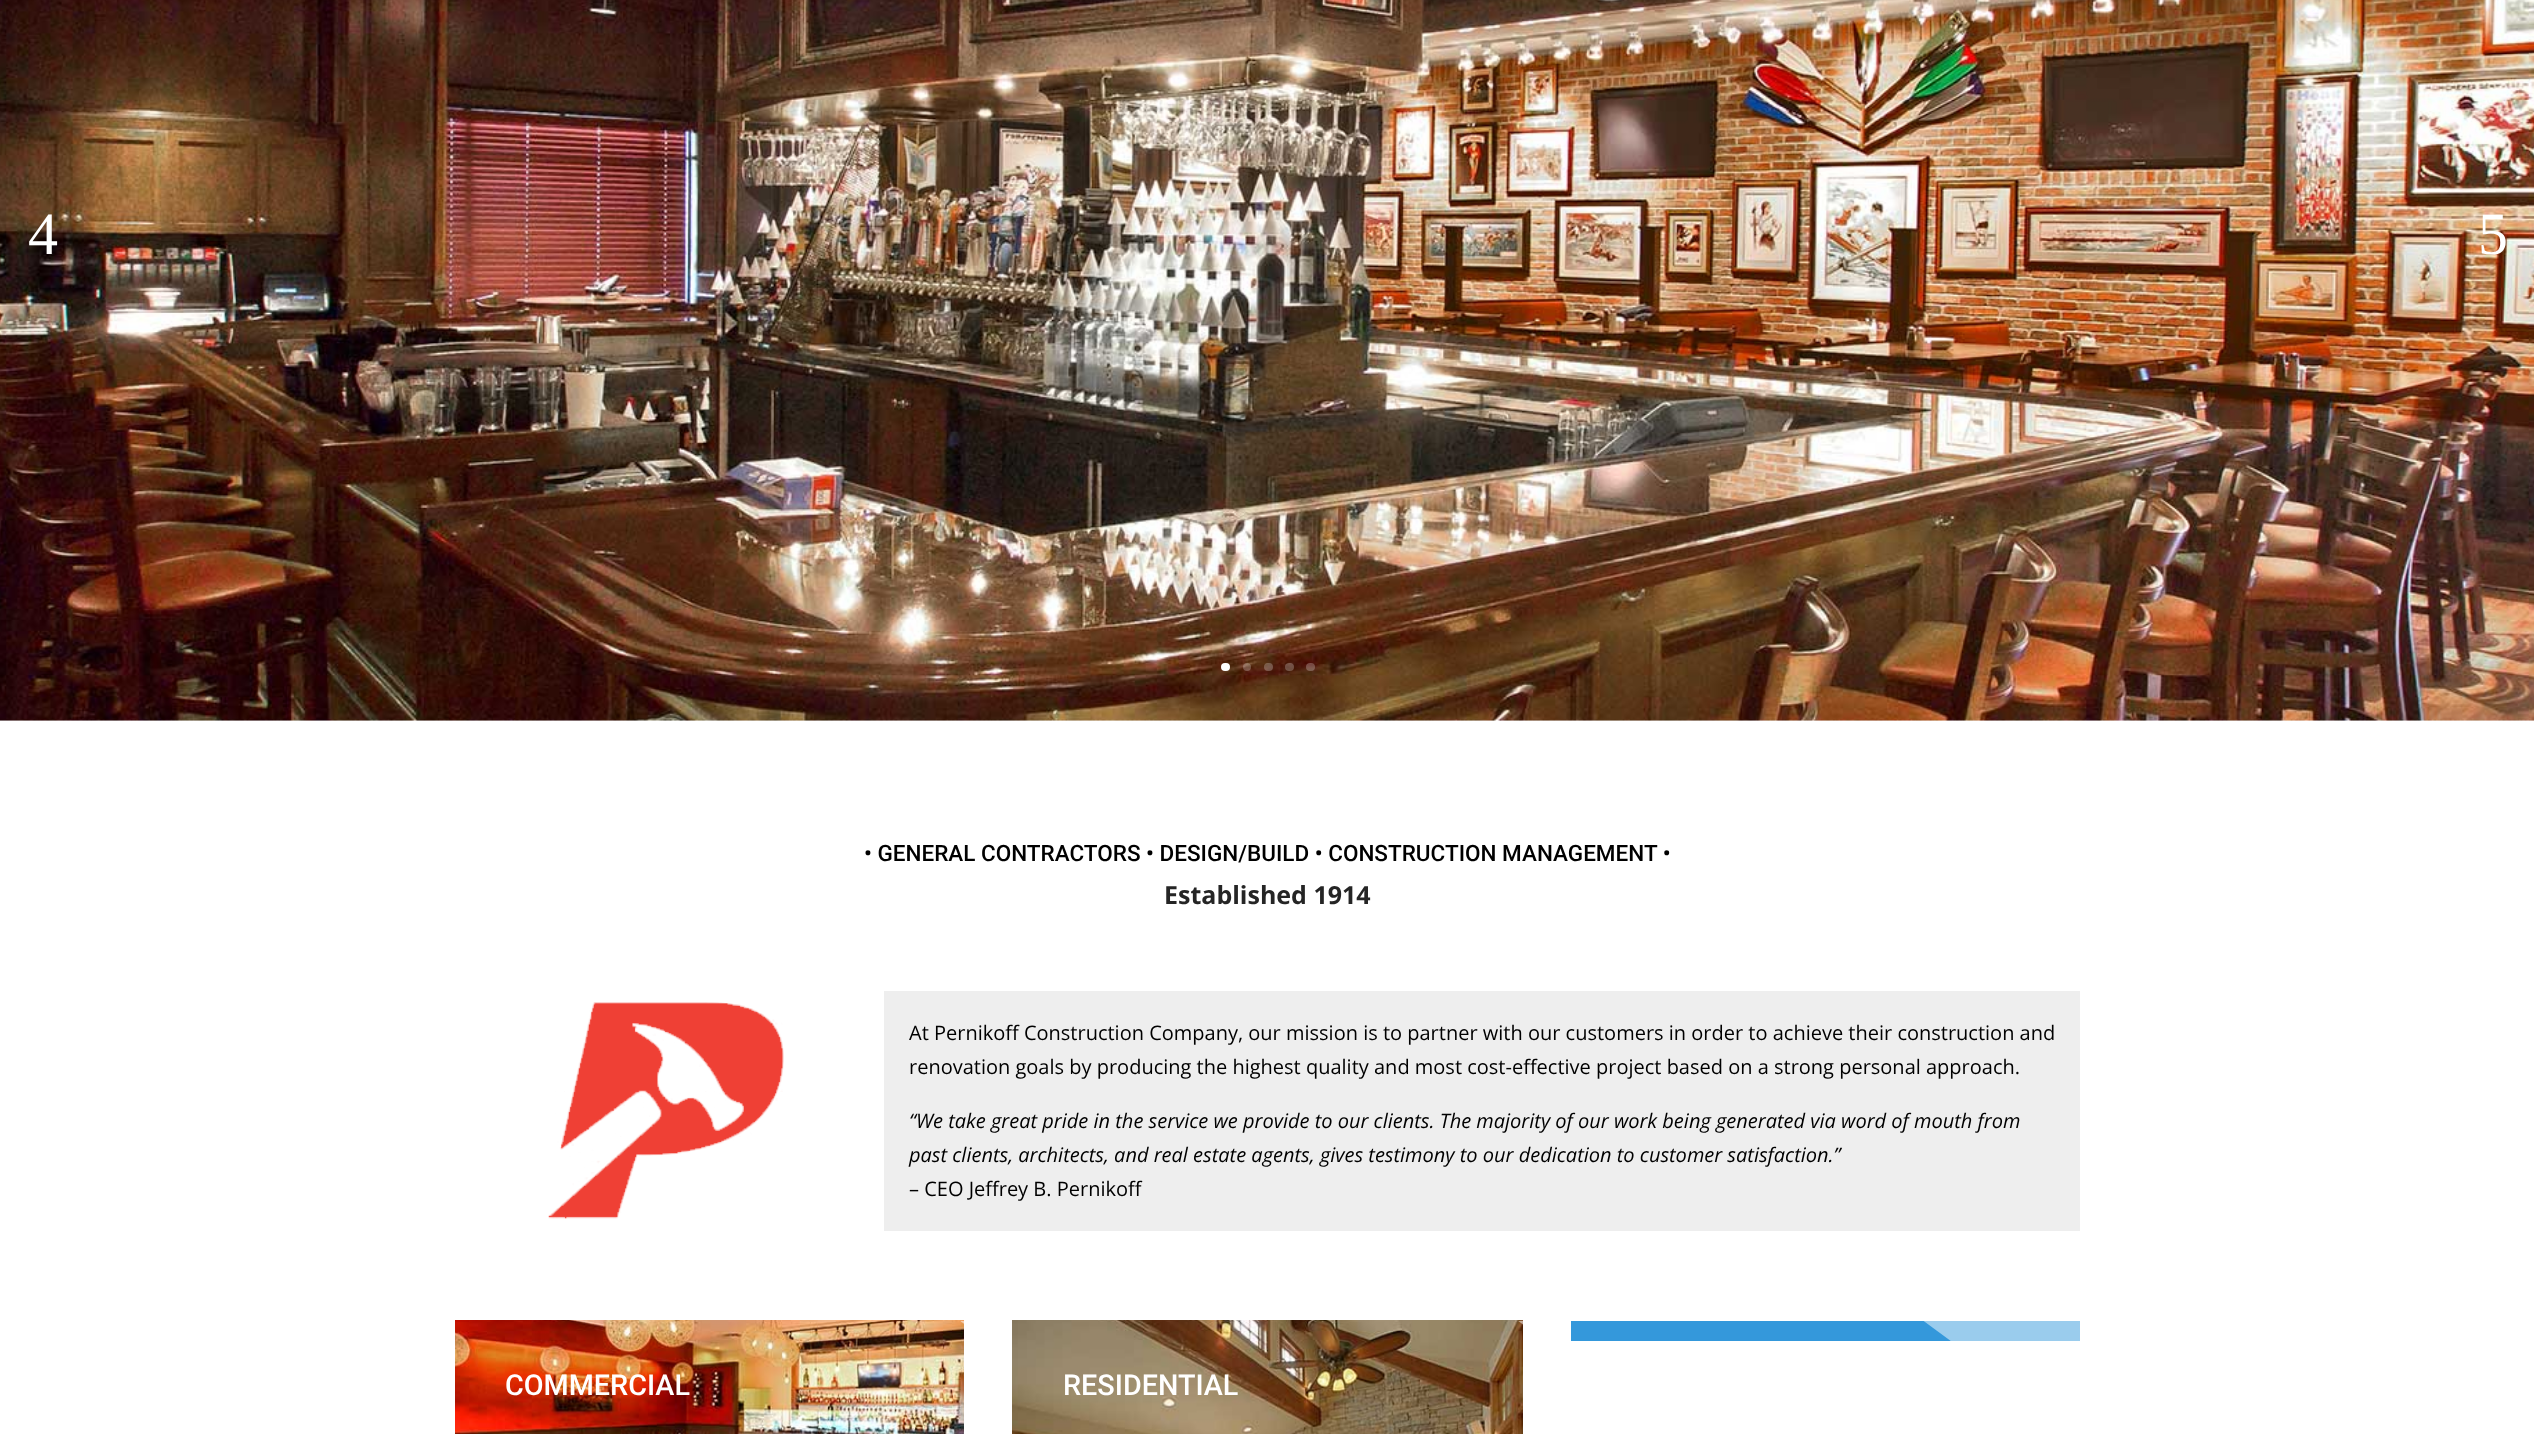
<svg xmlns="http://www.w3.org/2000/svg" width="2534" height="1434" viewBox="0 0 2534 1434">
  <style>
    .t1 { font: 60px Liberation Serif; fill: #fff; }
    .t2 { font: 500 22.5px Roboto; fill: #000; }
    .t3 { font: bold 25px Open Sans; fill: #252525; }
    .t4 { font: 20px Open Sans; fill: #000; }
    .t5 { font: italic 20px Open Sans; fill: #000; }
    .t6 { font: 500 28.75px Roboto; fill: #fff; }
  </style>
  <defs>
    <clipPath id="clip1"><rect x="1571" y="1321" width="509" height="20"/></clipPath>
    <clipPath id="clip2"><rect x="455" y="1321" width="509" height="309"/></clipPath>
    <clipPath id="clip3"><rect x="1013" y="1321" width="510" height="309"/></clipPath>
  </defs>
  <rect width="100%" height="100%" fill="#fff"/>
  <image x="0" y="0" width="2534" height="721" href="images/1.png"/>
  <text x="28" y="254" class="t1">4</text>
  <text x="2478" y="254" class="t1">5</text>
  <rect x="1221" y="663" width="9" height="8" rx="4" fill="#fff"/>
  <circle cx="1247" cy="667" r="4" fill="#ffffff40"/>
  <rect x="1264" y="663" width="9" height="8" rx="4" fill="#ffffff40"/>
  <rect x="1285" y="663" width="9" height="8" rx="4" fill="#ffffff40"/>
  <rect x="1306" y="663" width="9" height="8" rx="4" fill="#ffffff40"/>
  <text x="864" y="861" class="t2">• GENERAL CONTRACTORS • DESIGN/BUILD • CONSTRUCTION MANAGEMENT •</text>
  <text x="1164" y="904" class="t3">Established 1914</text>
  <image x="548" y="1002" width="236" height="217" href="images/2.png"/>
  <rect x="884" y="991" width="1196" height="240" fill="#eee"/>
  <text x="909" y="1040" class="t4">At Pernikoff Construction Company, our mission is to partner with our customers in order to achieve their construction and</text>
  <text x="909" y="1074" class="t4">renovation goals by producing the highest quality and most cost-effective project based on a strong personal approach.</text>
  <text x="909" y="1128" class="t5">“We take great pride in the service we provide to our clients. The majority of our work being generated via word of mouth from</text>
  <text x="909" y="1162" class="t5">past clients, architects, and real estate agents, gives testimony to our dedication to customer satisfaction.”</text>
  <text x="909" y="1196" class="t4">– CEO Jeffrey B. Pernikoff</text>
  <rect x="1571" y="1321" width="380" height="20" fill="#3498db"/>
  <g clip-path="url(#clip1)">
    <path d="M1696 936L2449 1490L2301 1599L1549 1045Z" fill="#9acced"/>
  </g>
  <image x="455" y="1320" width="509" height="114" href="images/3.png"/>
  <g clip-path="url(#clip2)">
    <path d="M1044 710L1796 1264L1339 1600L587 1046Z" fill="#ffffff80"/>
  </g>
  <text x="505" y="1395" class="t6">COMMERCIAL</text>
  <image x="1012" y="1320" width="511" height="114" href="images/4.png"/>
  <g clip-path="url(#clip3)">
    <path d="M1601 710L2354 1264L1897 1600L1145 1046Z" fill="#ffffff80"/>
  </g>
  <text x="1063" y="1395" class="t6">RESIDENTIAL</text>
</svg>
